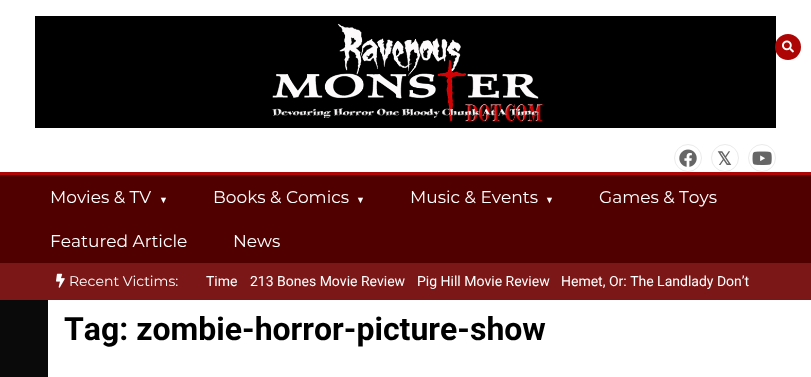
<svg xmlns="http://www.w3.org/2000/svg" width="811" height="377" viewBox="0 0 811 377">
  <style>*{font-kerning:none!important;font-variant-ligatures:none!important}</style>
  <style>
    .t1 { font: bold 18px DejaVu Sans; fill: #666; }
    .t2 { font: 17px Montserrat; fill: #fff; }
    .t3 { font: 9px Liberation Serif; fill: #fff; }
    .t4 { font: 14px Montserrat; fill: #fff; }
    .t5 { font: 14px Roboto; fill: #fff; }
    .t6 { font: bold 32px Roboto; fill: #000; }
  </style>
  <rect width="100%" height="100%" fill="#0a0a0a"/>
  <rect x="0" y="0" width="811" height="172" fill="#fff"/>
  <image x="35" y="16" width="741" height="112" href="images/1.png"/>
  <circle cx="788" cy="47" r="13" fill="#ad0505"/>
  <image x="782" y="40" width="12" height="13" href="images/2.png"/>
  <circle cx="688" cy="158" r="13.5" fill="none" stroke="#ebebeb"/>
  <image x="679" y="149" width="18" height="18" href="images/3.png"/>
  <circle cx="725" cy="158" r="13.5" fill="none" stroke="#ebebeb"/>
  <text x="717" y="165" class="t1">𝕏</text>
  <circle cx="762" cy="158" r="13.5" fill="none" stroke="#ebebeb"/>
  <image x="752" y="151" width="20" height="14" href="images/4.png"/>
  <rect x="0" y="175" width="811" height="88" fill="#510000"/>
  <rect x="0" y="172" width="811" height="3" fill="#ad0505"/>
  <text x="50" y="203" class="t2">Movies &amp; TV</text>
  <text x="159" y="203" class="t3">▼</text>
  <text x="213" y="203" class="t2">Books &amp; Comics</text>
  <text x="356" y="203" class="t3">▼</text>
  <text x="410" y="203" class="t2">Music &amp; Events</text>
  <text x="545" y="203" class="t3">▼</text>
  <text x="599" y="203" class="t2">Games &amp; Toys</text>
  <text x="50" y="247" class="t2">Featured Article</text>
  <text x="233" y="247" class="t2">News</text>
  <rect x="0" y="263" width="811" height="37" fill="#7c1717"/>
  <image x="56" y="273" width="9" height="15" href="images/5.png"/>
  <text x="69" y="286" class="t4">Recent Victims:</text>
  <text x="206" y="286" class="t5">Time</text>
  <text x="250" y="286" class="t5">213 Bones Movie Review</text>
  <text x="417" y="286" class="t5">Pig Hill Movie Review</text>
  <text x="561" y="286" class="t5">Hemet, Or: The Landlady Don’t</text>
  <rect x="48" y="300" width="763" height="77" fill="#fff"/>
  <text x="64" y="340" class="t6">Tag: zombie-horror-picture-show</text>
</svg>
